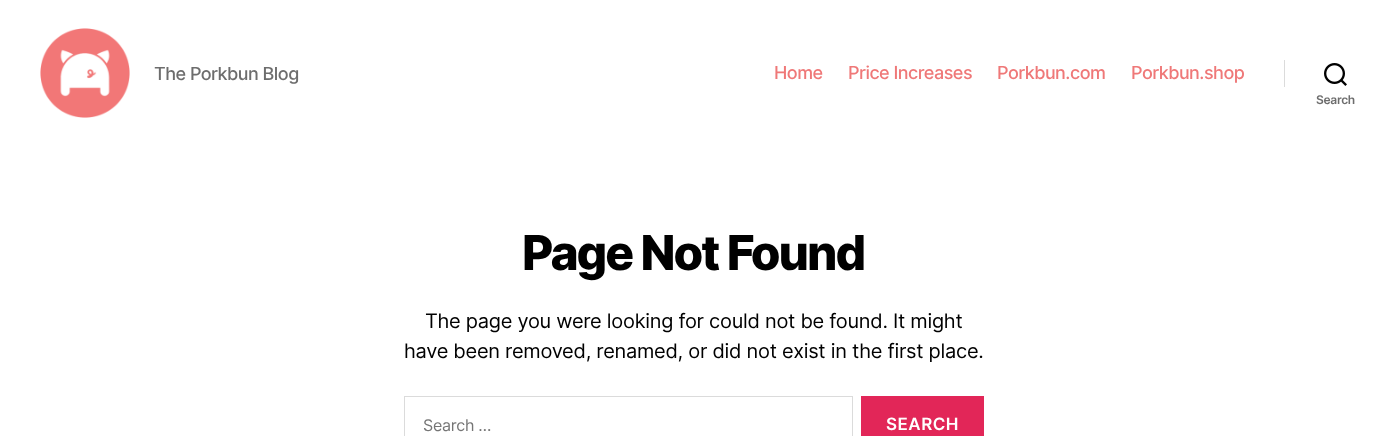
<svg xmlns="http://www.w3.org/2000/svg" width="1387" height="436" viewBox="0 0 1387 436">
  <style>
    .t1 { font: 500 18px Inter; letter-spacing: -0.5px; fill: #6d6d6d; }
    .t2 { font: 500 18px Inter; letter-spacing: -0.5px; fill: #ef7878; }
    .t3 { font: 600 12px Inter; letter-spacing: -0.27px; fill: #6d6d6d; }
    .t4 { font: 800 48px Inter; letter-spacing: -2px; fill: #000; }
    .t5 { font: 20px Inter; letter-spacing: -0.27px; fill: #000; }
    .t6 { font: 16px Inter; letter-spacing: -0.25px; fill: #757575; }
    .t7 { font: 600 17px Inter; letter-spacing: 0.5px; fill: #fff; }
  </style>
  <rect width="100%" height="100%" fill="#fff"/>
  <image x="40" y="28" width="90" height="90" href="images/1.png"/>
  <text x="154" y="80" class="t1">The Porkbun Blog</text>
  <text x="774" y="79" class="t2">Home</text>
  <text x="848" y="79" class="t2">Price Increases</text>
  <text x="997" y="79" class="t2">Porkbun.com</text>
  <text x="1131" y="79" class="t2">Porkbun.shop</text>
  <rect x="1284" y="60" width="1" height="27" fill="#dbdbdb"/>
  <image x="1324" y="63" width="23" height="23" href="images/2.png"/>
  <text x="1316" y="104" class="t3">Search</text>
  <text x="522" y="270" class="t4">Page Not Found</text>
  <text x="425" y="328" class="t5">The page you were looking for could not be found. It might</text>
  <text x="404" y="358" class="t5">have been removed, renamed, or did not exist in the first place.</text>
  <rect x="404.5" y="396.5" width="448" height="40" fill="none" stroke="#dbdbdb"/>
  <text x="423" y="431" class="t6">Search …</text>
  <rect x="861" y="396" width="123" height="40" fill="#e22658"/>
  <text x="886" y="430" class="t7">SEARCH</text>
</svg>
